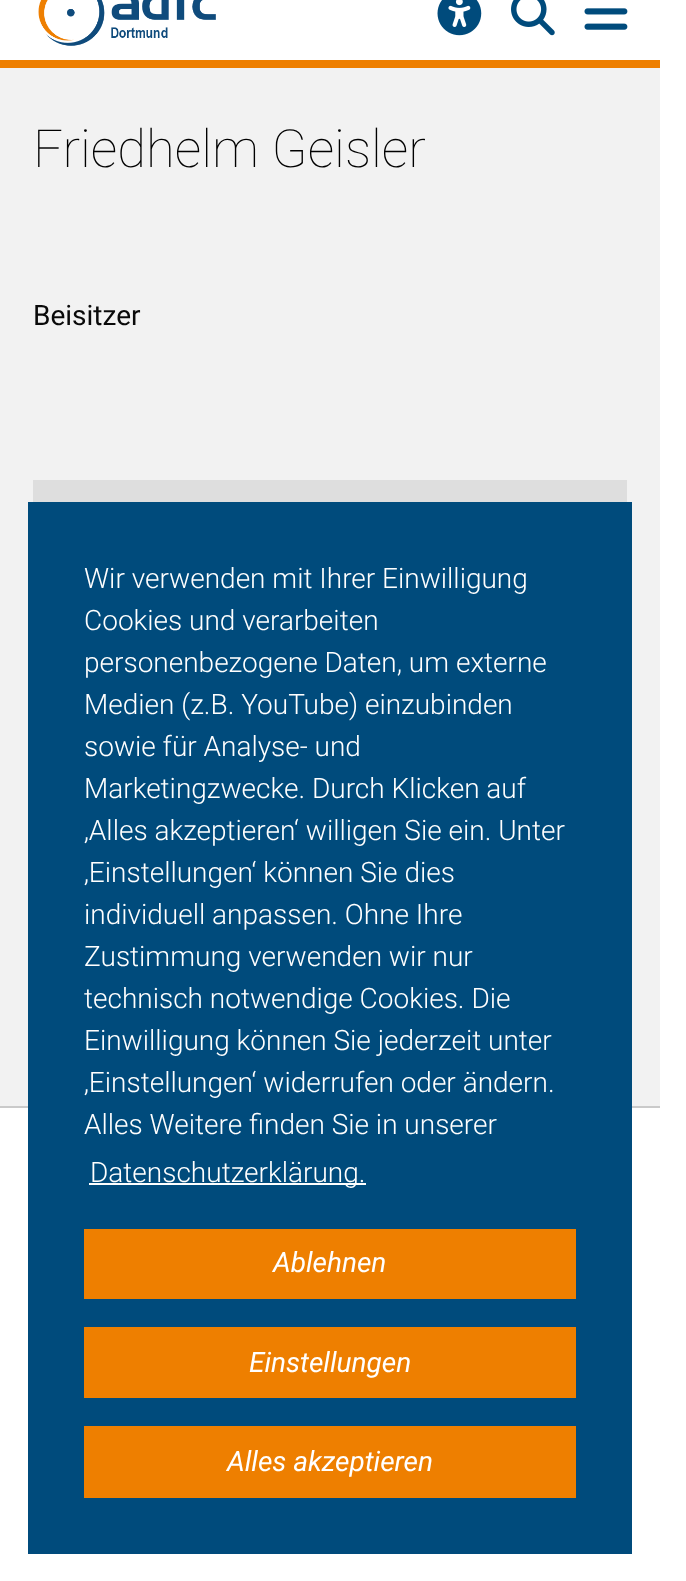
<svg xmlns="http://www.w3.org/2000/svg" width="686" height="1581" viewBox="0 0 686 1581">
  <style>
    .t1 { font: 100 52.5px Roboto; fill: #000; }
    .t2 { font: 28px Roboto; fill: #0a0a0a; }
    .t3 { font: 300 28px Roboto; fill: #fff; }
    .t4 { font: italic 28px Roboto; fill: #fff; }
  </style>
  <rect width="100%" height="100%" fill="#fff"/>
  <image x="38" y="0" width="178" height="46" href="images/1.png"/>
  <image x="437" y="0" width="45" height="36" href="images/2.png"/>
  <image x="511" y="0" width="44" height="36" href="images/3.png"/>
  <image x="584" y="8" width="44" height="22" href="images/4.png"/>
  <rect x="0" y="60" width="660" height="8" fill="#ee7f00"/>
  <rect x="0" y="68" width="660" height="1038" fill="#f2f2f2"/>
  <text x="33" y="167" class="t1">Friedhelm Geisler</text>
  <text x="33" y="325" class="t2">Beisitzer</text>
  <rect x="33" y="480" width="594" height="22" fill="#dedede"/>
  <rect x="0" y="1106" width="660" height="2" fill="#cacaca"/>
  <rect x="28" y="502" width="604" height="1052" fill="#004b7c"/>
  <text x="84" y="588" class="t3">Wir verwenden mit Ihrer Einwilligung</text>
  <text x="84" y="630" class="t3">Cookies und verarbeiten</text>
  <text x="84" y="672" class="t3">personenbezogene Daten, um externe</text>
  <text x="84" y="714" class="t3">Medien (z.B. YouTube) einzubinden</text>
  <text x="84" y="756" class="t3">sowie für Analyse- und</text>
  <text x="84" y="798" class="t3">Marketingzwecke. Durch Klicken auf</text>
  <text x="84" y="840" class="t3">‚Alles akzeptieren‘ willigen Sie ein. Unter</text>
  <text x="84" y="882" class="t3">‚Einstellungen‘ können Sie dies</text>
  <text x="84" y="924" class="t3">individuell anpassen. Ohne Ihre</text>
  <text x="84" y="966" class="t3">Zustimmung verwenden wir nur</text>
  <text x="84" y="1008" class="t3">technisch notwendige Cookies. Die</text>
  <text x="84" y="1050" class="t3">Einwilligung können Sie jederzeit unter</text>
  <text x="84" y="1092" class="t3">‚Einstellungen‘ widerrufen oder ändern.</text>
  <text x="84" y="1134" class="t3">Alles Weitere finden Sie in unserer</text>
  <rect x="89" y="1183" width="277" height="2" fill="#fff"/>
  <text x="90" y="1182" class="t3">Datenschutzerklärung.</text>
  <rect x="84" y="1229" width="492" height="70" fill="#ee7f00"/>
  <text x="273" y="1272" class="t4">Ablehnen</text>
  <rect x="84" y="1327" width="492" height="71" fill="#ee7f00"/>
  <text x="249" y="1372" class="t4">Einstellungen</text>
  <rect x="84" y="1426" width="492" height="72" fill="#ee7f00"/>
  <text x="227" y="1471" class="t4">Alles akzeptieren</text>
</svg>
